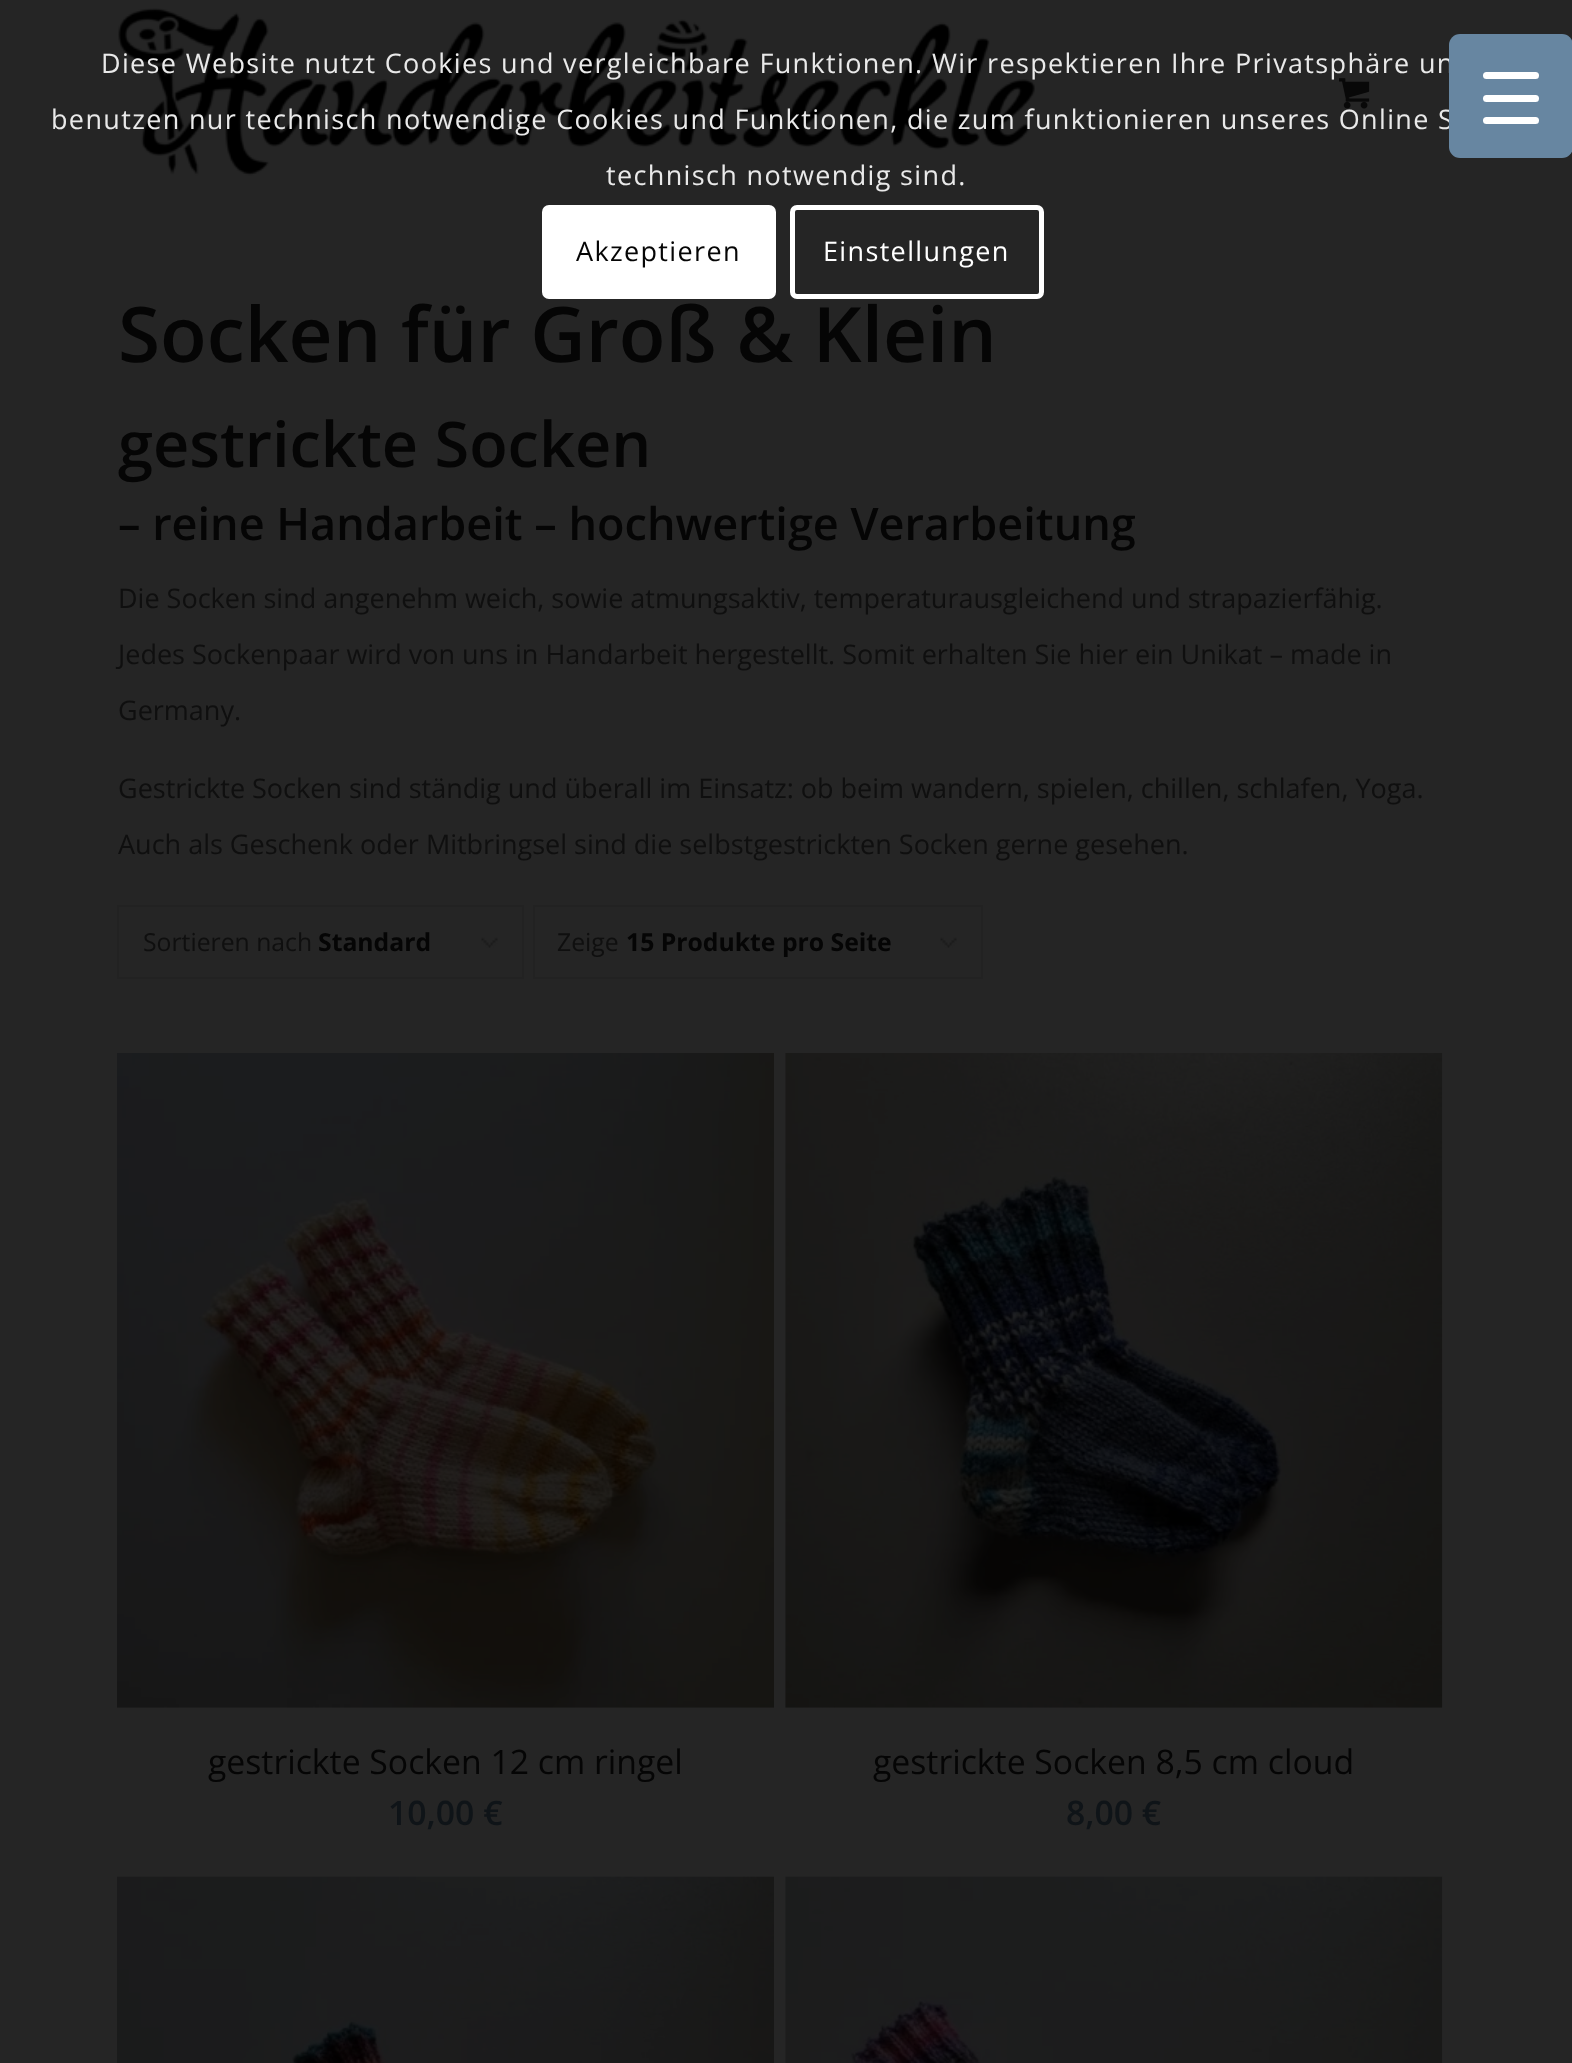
<svg xmlns="http://www.w3.org/2000/svg" width="1572" height="2063" viewBox="0 0 1572 2063">
  <style>
    .t1 { font: 27px Open Sans; letter-spacing: 1.35px; fill: #e9e9e9; }
    .t2 { font: 27px Open Sans; letter-spacing: 1.35px; fill: #050505; }
    .t3 { font: 27px Open Sans; letter-spacing: 1.35px; fill: #fff; }
    .t4 { font: 600 76.5px Open Sans; fill: #050505; }
    .t5 { font: 600 63px Open Sans; fill: #050505; }
    .t6 { font: 600 45px Open Sans; fill: #050505; }
    .t7 { font: 27px Open Sans; fill: #0f0f0f; }
    .t8 { font: 24.75px Open Sans; fill: #0f0f0f; }
    .t9 { font: bold 24.75px Open Sans; fill: #050505; }
    .t10 { font: 33.75px Open Sans; fill: #050505; }
    .t11 { font: 600 33.75px Open Sans; fill: #0f1418; }
  </style>
  <rect width="100%" height="100%" fill="#252525"/>
  <image x="118" y="8" width="917" height="168" href="images/1.png"/>
  <image x="1339" y="78" width="31" height="31" href="images/2.png"/>
  <text x="101" y="73" class="t1">Diese Website nutzt Cookies und vergleichbare Funktionen. Wir respektieren Ihre Privatsphäre un</text>
  <text x="51" y="129" class="t1">benutzen nur technisch notwendige Cookies und Funktionen, die zum funktionieren unseres Online S</text>
  <text x="606" y="185" class="t1">technisch notwendig sind.</text>
  <rect x="542" y="205" width="234" height="94" rx="7" fill="#fff"/>
  <text x="576" y="261" class="t2">Akzeptieren</text>
  <rect x="792.5" y="207.5" width="249" height="89" rx="4.5" fill="none" stroke="#fff" stroke-width="5"/>
  <text x="823" y="261" class="t3">Einstellungen</text>
  <rect x="1449" y="34" width="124" height="124" rx="11" fill="#6786a1"/>
  <rect x="1483" y="95" width="56" height="7" rx="3.5" fill="#fff"/>
  <rect x="1483" y="72" width="56" height="7" rx="3.5" fill="#fff"/>
  <rect x="1483" y="117" width="56" height="7" rx="3.5" fill="#fff"/>
  <text x="118" y="362" class="t4">Socken für Groß &amp; Klein</text>
  <text x="118" y="467" class="t5">gestrickte Socken</text>
  <text x="118" y="540" class="t6">– reine Handarbeit – hochwertige Verarbeitung</text>
  <text x="118" y="608" class="t7">Die Socken sind angenehm weich, sowie atmungsaktiv, temperaturausgleichend und strapazierfähig.</text>
  <text x="118" y="664" class="t7">Jedes Sockenpaar wird von uns in Handarbeit hergestellt. Somit erhalten Sie hier ein Unikat – made in</text>
  <text x="118" y="720" class="t7">Germany.</text>
  <text x="118" y="798" class="t7">Gestrickte Socken sind ständig und überall im Einsatz: ob beim wandern, spielen, chillen, schlafen, Yoga.</text>
  <text x="118" y="854" class="t7">Auch als Geschenk oder Mitbringsel sind die selbstgestrickten Socken gerne gesehen.</text>
  <image x="481" y="937" width="17" height="11" href="images/3.png"/>
  <rect x="118" y="906" width="405" height="72" fill="none" stroke="#222" stroke-width="2"/>
  <text x="143" y="951" class="t8">Sortieren nach</text>
  <text x="318" y="951" class="t9">Standard</text>
  <image x="940" y="937" width="17" height="11" href="images/3.png"/>
  <rect x="534" y="906" width="448" height="72" fill="none" stroke="#222" stroke-width="2"/>
  <text x="557" y="951" class="t8">Zeige</text>
  <text x="626" y="951" class="t9">15 Produkte pro Seite</text>
  <image x="117" y="1053" width="657" height="655" href="images/4.png"/>
  <text x="208" y="1774" class="t10">gestrickte Socken 12 cm ringel</text>
  <text x="388" y="1825" class="t11">10,00 €</text>
  <image x="785" y="1053" width="658" height="655" href="images/5.png"/>
  <text x="873" y="1774" class="t10">gestrickte Socken 8,5 cm cloud</text>
  <text x="1066" y="1825" class="t11">8,00 €</text>
  <image x="117" y="1876" width="657" height="187" href="images/6.png"/>
  <image x="785" y="1876" width="658" height="187" href="images/7.png"/>
</svg>
